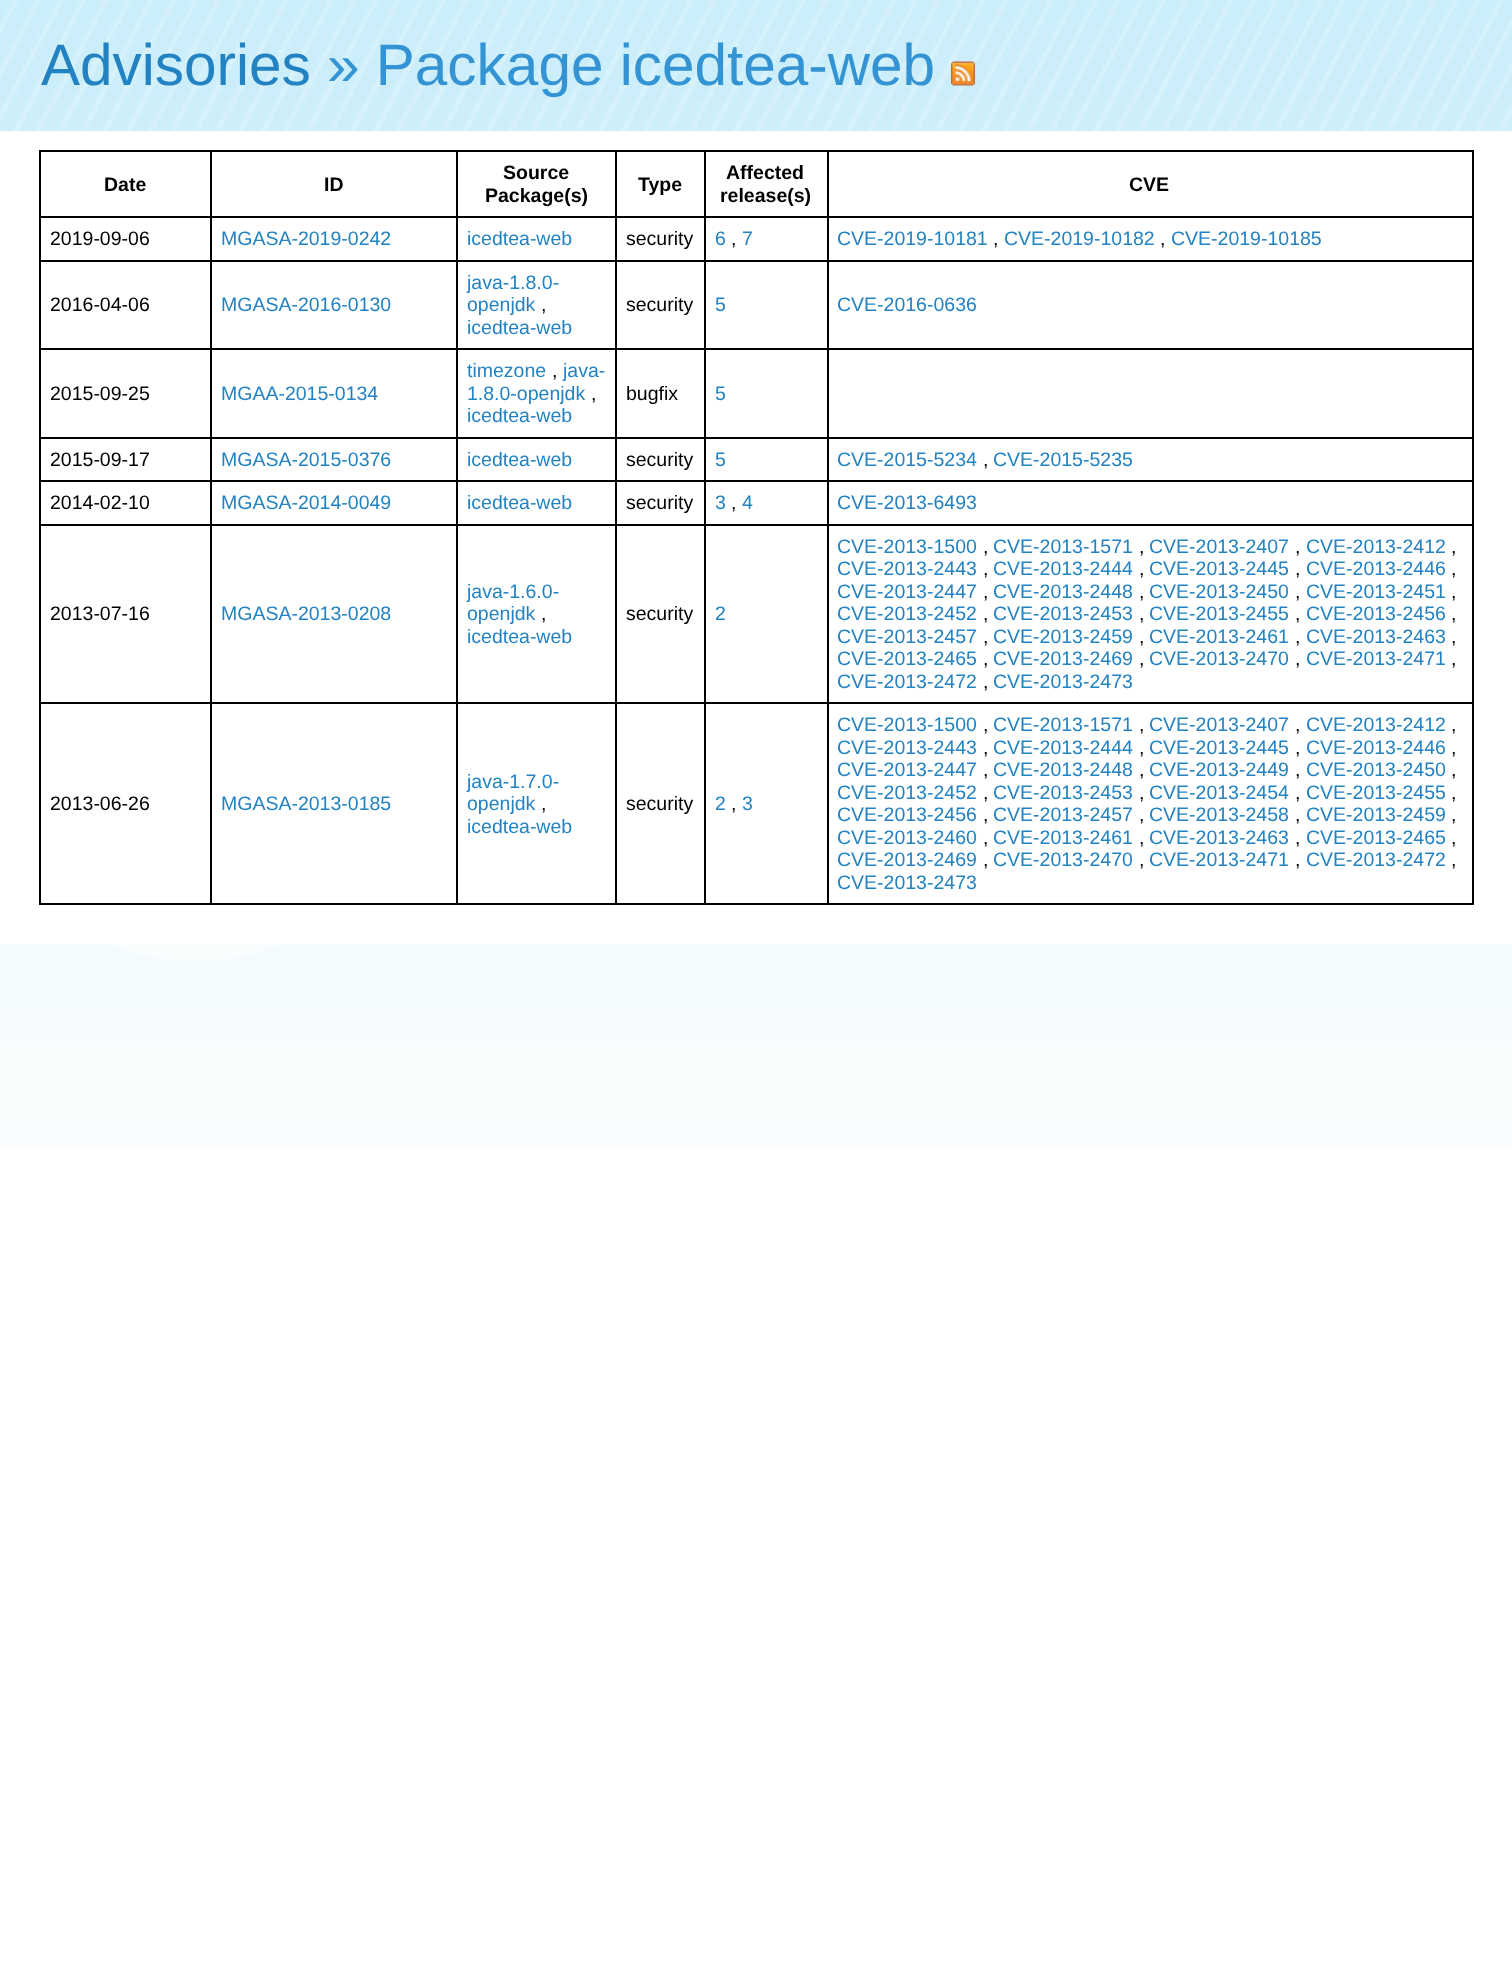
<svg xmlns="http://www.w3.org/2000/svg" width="1512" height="1962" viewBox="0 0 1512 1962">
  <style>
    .t1 { font: 58.5px Liberation Sans; fill: #2383c2; }
    .t2 { font: 58.5px Liberation Sans; fill: #3494d3; }
    .t3 { font: bold 19.5px Liberation Sans; fill: #000; }
    .t4 { font: 19.5px Liberation Sans; fill: #000; }
    .t5 { font: 19.5px Liberation Sans; fill: #2383c2; }
  </style>
  <rect width="100%" height="100%" fill="#fff"/>
  <image x="0" y="0" width="1512" height="1146" href="images/1.png"/>
  <image x="108" y="944" width="175" height="17" href="images/2.png"/>
  <text x="41" y="85" class="t1">Advisories</text>
  <text x="327" y="85" class="t2">» Package icedtea-web</text>
  <image x="951" y="61" width="24" height="25" href="images/3.png"/>
  <rect x="0" y="131" width="1512" height="813" fill="#fff"/>
  <rect x="827" y="150" width="646" height="2" fill="#000"/>
  <rect x="827" y="216" width="646" height="2" fill="#000"/>
  <rect x="827" y="260" width="646" height="2" fill="#000"/>
  <rect x="827" y="348" width="646" height="2" fill="#000"/>
  <rect x="827" y="437" width="646" height="2" fill="#000"/>
  <rect x="827" y="480" width="646" height="2" fill="#000"/>
  <rect x="827" y="524" width="646" height="2" fill="#000"/>
  <rect x="827" y="702" width="646" height="2" fill="#000"/>
  <rect x="1472" y="702" width="2" height="203" fill="#000"/>
  <rect x="827" y="903" width="646" height="2" fill="#000"/>
  <rect x="827" y="702" width="2" height="203" fill="#000"/>
  <rect x="704" y="702" width="124" height="2" fill="#000"/>
  <rect x="827" y="524" width="2" height="180" fill="#000"/>
  <rect x="704" y="524" width="124" height="2" fill="#000"/>
  <rect x="827" y="480" width="2" height="45" fill="#000"/>
  <rect x="704" y="480" width="124" height="2" fill="#000"/>
  <rect x="827" y="437" width="2" height="45" fill="#000"/>
  <rect x="704" y="437" width="124" height="2" fill="#000"/>
  <rect x="827" y="348" width="2" height="90" fill="#000"/>
  <rect x="704" y="348" width="124" height="2" fill="#000"/>
  <rect x="827" y="260" width="2" height="90" fill="#000"/>
  <rect x="704" y="260" width="124" height="2" fill="#000"/>
  <rect x="827" y="216" width="2" height="45" fill="#000"/>
  <rect x="704" y="216" width="124" height="2" fill="#000"/>
  <rect x="827" y="150" width="2" height="68" fill="#000"/>
  <rect x="704" y="150" width="124" height="2" fill="#000"/>
  <rect x="704" y="903" width="124" height="2" fill="#000"/>
  <rect x="704" y="702" width="2" height="203" fill="#000"/>
  <rect x="615" y="702" width="90" height="2" fill="#000"/>
  <rect x="704" y="524" width="2" height="180" fill="#000"/>
  <rect x="615" y="524" width="90" height="2" fill="#000"/>
  <rect x="704" y="480" width="2" height="45" fill="#000"/>
  <rect x="615" y="480" width="90" height="2" fill="#000"/>
  <rect x="704" y="437" width="2" height="45" fill="#000"/>
  <rect x="615" y="437" width="90" height="2" fill="#000"/>
  <rect x="704" y="348" width="2" height="90" fill="#000"/>
  <rect x="615" y="348" width="90" height="2" fill="#000"/>
  <rect x="704" y="260" width="2" height="90" fill="#000"/>
  <rect x="615" y="260" width="90" height="2" fill="#000"/>
  <rect x="704" y="216" width="2" height="45" fill="#000"/>
  <rect x="615" y="216" width="90" height="2" fill="#000"/>
  <rect x="704" y="150" width="2" height="68" fill="#000"/>
  <rect x="615" y="150" width="90" height="2" fill="#000"/>
  <rect x="615" y="903" width="90" height="2" fill="#000"/>
  <rect x="615" y="702" width="2" height="203" fill="#000"/>
  <rect x="456" y="702" width="161" height="2" fill="#000"/>
  <rect x="615" y="524" width="2" height="180" fill="#000"/>
  <rect x="456" y="524" width="161" height="2" fill="#000"/>
  <rect x="615" y="480" width="2" height="45" fill="#000"/>
  <rect x="456" y="480" width="161" height="2" fill="#000"/>
  <rect x="615" y="437" width="2" height="45" fill="#000"/>
  <rect x="456" y="437" width="161" height="2" fill="#000"/>
  <rect x="615" y="348" width="2" height="90" fill="#000"/>
  <rect x="456" y="348" width="161" height="2" fill="#000"/>
  <rect x="615" y="260" width="2" height="90" fill="#000"/>
  <rect x="456" y="260" width="161" height="2" fill="#000"/>
  <rect x="615" y="216" width="2" height="45" fill="#000"/>
  <rect x="456" y="216" width="161" height="2" fill="#000"/>
  <rect x="615" y="150" width="2" height="68" fill="#000"/>
  <rect x="456" y="150" width="161" height="2" fill="#000"/>
  <rect x="456" y="903" width="161" height="2" fill="#000"/>
  <rect x="456" y="702" width="2" height="203" fill="#000"/>
  <rect x="210" y="702" width="248" height="2" fill="#000"/>
  <rect x="456" y="524" width="2" height="180" fill="#000"/>
  <rect x="210" y="524" width="248" height="2" fill="#000"/>
  <rect x="456" y="480" width="2" height="45" fill="#000"/>
  <rect x="210" y="480" width="248" height="2" fill="#000"/>
  <rect x="456" y="437" width="2" height="45" fill="#000"/>
  <rect x="210" y="437" width="248" height="2" fill="#000"/>
  <rect x="456" y="348" width="2" height="90" fill="#000"/>
  <rect x="210" y="348" width="248" height="2" fill="#000"/>
  <rect x="456" y="260" width="2" height="90" fill="#000"/>
  <rect x="210" y="260" width="248" height="2" fill="#000"/>
  <rect x="456" y="216" width="2" height="45" fill="#000"/>
  <rect x="210" y="216" width="248" height="2" fill="#000"/>
  <rect x="456" y="150" width="2" height="68" fill="#000"/>
  <rect x="210" y="150" width="248" height="2" fill="#000"/>
  <rect x="210" y="903" width="248" height="2" fill="#000"/>
  <rect x="210" y="702" width="2" height="203" fill="#000"/>
  <rect x="39" y="702" width="173" height="2" fill="#000"/>
  <rect x="210" y="524" width="2" height="180" fill="#000"/>
  <rect x="39" y="524" width="173" height="2" fill="#000"/>
  <rect x="210" y="480" width="2" height="45" fill="#000"/>
  <rect x="39" y="480" width="173" height="2" fill="#000"/>
  <rect x="210" y="437" width="2" height="45" fill="#000"/>
  <rect x="39" y="437" width="173" height="2" fill="#000"/>
  <rect x="210" y="348" width="2" height="90" fill="#000"/>
  <rect x="39" y="348" width="173" height="2" fill="#000"/>
  <rect x="210" y="260" width="2" height="90" fill="#000"/>
  <rect x="39" y="260" width="173" height="2" fill="#000"/>
  <rect x="210" y="216" width="2" height="45" fill="#000"/>
  <rect x="39" y="216" width="173" height="2" fill="#000"/>
  <rect x="210" y="150" width="2" height="68" fill="#000"/>
  <rect x="39" y="150" width="173" height="2" fill="#000"/>
  <rect x="39" y="903" width="173" height="2" fill="#000"/>
  <rect x="39" y="702" width="2" height="203" fill="#000"/>
  <rect x="39" y="524" width="2" height="180" fill="#000"/>
  <rect x="39" y="480" width="2" height="45" fill="#000"/>
  <rect x="39" y="437" width="2" height="45" fill="#000"/>
  <rect x="39" y="348" width="2" height="90" fill="#000"/>
  <rect x="39" y="260" width="2" height="90" fill="#000"/>
  <rect x="39" y="216" width="2" height="45" fill="#000"/>
  <rect x="39" y="150" width="2" height="68" fill="#000"/>
  <text x="104" y="191" class="t3">Date</text>
  <text x="324" y="191" class="t3">ID</text>
  <text x="503" y="179" class="t3">Source</text>
  <text x="485" y="202" class="t3">Package(s)</text>
  <text x="638" y="191" class="t3">Type</text>
  <text x="726" y="179" class="t3">Affected</text>
  <text x="720" y="202" class="t3">release(s)</text>
  <rect x="1472" y="524" width="2" height="180" fill="#000"/>
  <rect x="1472" y="480" width="2" height="45" fill="#000"/>
  <rect x="1472" y="437" width="2" height="45" fill="#000"/>
  <rect x="1472" y="348" width="2" height="90" fill="#000"/>
  <rect x="1472" y="260" width="2" height="90" fill="#000"/>
  <rect x="1472" y="216" width="2" height="45" fill="#000"/>
  <rect x="1472" y="150" width="2" height="68" fill="#000"/>
  <text x="1129" y="191" class="t3">CVE</text>
  <text x="50" y="245" class="t4">2019-09-06</text>
  <text x="221" y="245" class="t5">MGASA-2019-0242</text>
  <text x="467" y="245" class="t5">icedtea-web</text>
  <text x="626" y="245" class="t4">security</text>
  <text x="715" y="245" class="t5">6</text>
  <text x="731" y="245" class="t4">,</text>
  <text x="742" y="245" class="t5">7</text>
  <text x="837" y="245" class="t5">CVE-2019-10181</text>
  <text x="993" y="245" class="t4">,</text>
  <text x="1004" y="245" class="t5">CVE-2019-10182</text>
  <text x="1160" y="245" class="t4">,</text>
  <text x="1171" y="245" class="t5">CVE-2019-10185</text>
  <text x="50" y="311" class="t4">2016-04-06</text>
  <text x="221" y="311" class="t5">MGASA-2016-0130</text>
  <text x="467" y="289" class="t5">java-1.8.0-</text>
  <text x="467" y="311" class="t5">openjdk</text>
  <text x="541" y="311" class="t4">,</text>
  <text x="467" y="334" class="t5">icedtea-web</text>
  <text x="626" y="311" class="t4">security</text>
  <text x="715" y="311" class="t5">5</text>
  <text x="837" y="311" class="t5">CVE-2016-0636</text>
  <text x="50" y="400" class="t4">2015-09-25</text>
  <text x="221" y="400" class="t5">MGAA-2015-0134</text>
  <text x="467" y="377" class="t5">timezone</text>
  <text x="552" y="377" class="t4">,</text>
  <text x="563" y="377" class="t5">java-</text>
  <text x="467" y="400" class="t5">1.8.0-openjdk</text>
  <text x="591" y="400" class="t4">,</text>
  <text x="467" y="422" class="t5">icedtea-web</text>
  <text x="626" y="400" class="t4">bugfix</text>
  <text x="715" y="400" class="t5">5</text>
  <text x="50" y="466" class="t4">2015-09-17</text>
  <text x="221" y="466" class="t5">MGASA-2015-0376</text>
  <text x="467" y="466" class="t5">icedtea-web</text>
  <text x="626" y="466" class="t4">security</text>
  <text x="715" y="466" class="t5">5</text>
  <text x="837" y="466" class="t5">CVE-2015-5234</text>
  <text x="983" y="466" class="t4">,</text>
  <text x="993" y="466" class="t5">CVE-2015-5235</text>
  <text x="50" y="509" class="t4">2014-02-10</text>
  <text x="221" y="509" class="t5">MGASA-2014-0049</text>
  <text x="467" y="509" class="t5">icedtea-web</text>
  <text x="626" y="509" class="t4">security</text>
  <text x="715" y="509" class="t5">3</text>
  <text x="731" y="509" class="t4">,</text>
  <text x="742" y="509" class="t5">4</text>
  <text x="837" y="509" class="t5">CVE-2013-6493</text>
  <text x="50" y="620" class="t4">2013-07-16</text>
  <text x="221" y="620" class="t5">MGASA-2013-0208</text>
  <text x="467" y="598" class="t5">java-1.6.0-</text>
  <text x="467" y="620" class="t5">openjdk</text>
  <text x="541" y="620" class="t4">,</text>
  <text x="467" y="643" class="t5">icedtea-web</text>
  <text x="626" y="620" class="t4">security</text>
  <text x="715" y="620" class="t5">2</text>
  <text x="837" y="553" class="t5">CVE-2013-1500</text>
  <text x="983" y="553" class="t4">,</text>
  <text x="993" y="553" class="t5">CVE-2013-1571</text>
  <text x="1139" y="553" class="t4">,</text>
  <text x="1149" y="553" class="t5">CVE-2013-2407</text>
  <text x="1295" y="553" class="t4">,</text>
  <text x="1306" y="553" class="t5">CVE-2013-2412</text>
  <text x="1451" y="553" class="t4">,</text>
  <text x="837" y="575" class="t5">CVE-2013-2443</text>
  <text x="983" y="575" class="t4">,</text>
  <text x="993" y="575" class="t5">CVE-2013-2444</text>
  <text x="1139" y="575" class="t4">,</text>
  <text x="1149" y="575" class="t5">CVE-2013-2445</text>
  <text x="1295" y="575" class="t4">,</text>
  <text x="1306" y="575" class="t5">CVE-2013-2446</text>
  <text x="1451" y="575" class="t4">,</text>
  <text x="837" y="598" class="t5">CVE-2013-2447</text>
  <text x="983" y="598" class="t4">,</text>
  <text x="993" y="598" class="t5">CVE-2013-2448</text>
  <text x="1139" y="598" class="t4">,</text>
  <text x="1149" y="598" class="t5">CVE-2013-2450</text>
  <text x="1295" y="598" class="t4">,</text>
  <text x="1306" y="598" class="t5">CVE-2013-2451</text>
  <text x="1451" y="598" class="t4">,</text>
  <text x="837" y="620" class="t5">CVE-2013-2452</text>
  <text x="983" y="620" class="t4">,</text>
  <text x="993" y="620" class="t5">CVE-2013-2453</text>
  <text x="1139" y="620" class="t4">,</text>
  <text x="1149" y="620" class="t5">CVE-2013-2455</text>
  <text x="1295" y="620" class="t4">,</text>
  <text x="1306" y="620" class="t5">CVE-2013-2456</text>
  <text x="1451" y="620" class="t4">,</text>
  <text x="837" y="643" class="t5">CVE-2013-2457</text>
  <text x="983" y="643" class="t4">,</text>
  <text x="993" y="643" class="t5">CVE-2013-2459</text>
  <text x="1139" y="643" class="t4">,</text>
  <text x="1149" y="643" class="t5">CVE-2013-2461</text>
  <text x="1295" y="643" class="t4">,</text>
  <text x="1306" y="643" class="t5">CVE-2013-2463</text>
  <text x="1451" y="643" class="t4">,</text>
  <text x="837" y="665" class="t5">CVE-2013-2465</text>
  <text x="983" y="665" class="t4">,</text>
  <text x="993" y="665" class="t5">CVE-2013-2469</text>
  <text x="1139" y="665" class="t4">,</text>
  <text x="1149" y="665" class="t5">CVE-2013-2470</text>
  <text x="1295" y="665" class="t4">,</text>
  <text x="1306" y="665" class="t5">CVE-2013-2471</text>
  <text x="1451" y="665" class="t4">,</text>
  <text x="837" y="688" class="t5">CVE-2013-2472</text>
  <text x="983" y="688" class="t4">,</text>
  <text x="993" y="688" class="t5">CVE-2013-2473</text>
  <text x="50" y="810" class="t4">2013-06-26</text>
  <text x="221" y="810" class="t5">MGASA-2013-0185</text>
  <text x="467" y="788" class="t5">java-1.7.0-</text>
  <text x="467" y="810" class="t5">openjdk</text>
  <text x="541" y="810" class="t4">,</text>
  <text x="467" y="833" class="t5">icedtea-web</text>
  <text x="626" y="810" class="t4">security</text>
  <text x="715" y="810" class="t5">2</text>
  <text x="731" y="810" class="t4">,</text>
  <text x="742" y="810" class="t5">3</text>
  <text x="837" y="731" class="t5">CVE-2013-1500</text>
  <text x="983" y="731" class="t4">,</text>
  <text x="993" y="731" class="t5">CVE-2013-1571</text>
  <text x="1139" y="731" class="t4">,</text>
  <text x="1149" y="731" class="t5">CVE-2013-2407</text>
  <text x="1295" y="731" class="t4">,</text>
  <text x="1306" y="731" class="t5">CVE-2013-2412</text>
  <text x="1451" y="731" class="t4">,</text>
  <text x="837" y="754" class="t5">CVE-2013-2443</text>
  <text x="983" y="754" class="t4">,</text>
  <text x="993" y="754" class="t5">CVE-2013-2444</text>
  <text x="1139" y="754" class="t4">,</text>
  <text x="1149" y="754" class="t5">CVE-2013-2445</text>
  <text x="1295" y="754" class="t4">,</text>
  <text x="1306" y="754" class="t5">CVE-2013-2446</text>
  <text x="1451" y="754" class="t4">,</text>
  <text x="837" y="776" class="t5">CVE-2013-2447</text>
  <text x="983" y="776" class="t4">,</text>
  <text x="993" y="776" class="t5">CVE-2013-2448</text>
  <text x="1139" y="776" class="t4">,</text>
  <text x="1149" y="776" class="t5">CVE-2013-2449</text>
  <text x="1295" y="776" class="t4">,</text>
  <text x="1306" y="776" class="t5">CVE-2013-2450</text>
  <text x="1451" y="776" class="t4">,</text>
  <text x="837" y="799" class="t5">CVE-2013-2452</text>
  <text x="983" y="799" class="t4">,</text>
  <text x="993" y="799" class="t5">CVE-2013-2453</text>
  <text x="1139" y="799" class="t4">,</text>
  <text x="1149" y="799" class="t5">CVE-2013-2454</text>
  <text x="1295" y="799" class="t4">,</text>
  <text x="1306" y="799" class="t5">CVE-2013-2455</text>
  <text x="1451" y="799" class="t4">,</text>
  <text x="837" y="821" class="t5">CVE-2013-2456</text>
  <text x="983" y="821" class="t4">,</text>
  <text x="993" y="821" class="t5">CVE-2013-2457</text>
  <text x="1139" y="821" class="t4">,</text>
  <text x="1149" y="821" class="t5">CVE-2013-2458</text>
  <text x="1295" y="821" class="t4">,</text>
  <text x="1306" y="821" class="t5">CVE-2013-2459</text>
  <text x="1451" y="821" class="t4">,</text>
  <text x="837" y="844" class="t5">CVE-2013-2460</text>
  <text x="983" y="844" class="t4">,</text>
  <text x="993" y="844" class="t5">CVE-2013-2461</text>
  <text x="1139" y="844" class="t4">,</text>
  <text x="1149" y="844" class="t5">CVE-2013-2463</text>
  <text x="1295" y="844" class="t4">,</text>
  <text x="1306" y="844" class="t5">CVE-2013-2465</text>
  <text x="1451" y="844" class="t4">,</text>
  <text x="837" y="866" class="t5">CVE-2013-2469</text>
  <text x="983" y="866" class="t4">,</text>
  <text x="993" y="866" class="t5">CVE-2013-2470</text>
  <text x="1139" y="866" class="t4">,</text>
  <text x="1149" y="866" class="t5">CVE-2013-2471</text>
  <text x="1295" y="866" class="t4">,</text>
  <text x="1306" y="866" class="t5">CVE-2013-2472</text>
  <text x="1451" y="866" class="t4">,</text>
  <text x="837" y="889" class="t5">CVE-2013-2473</text>
</svg>
